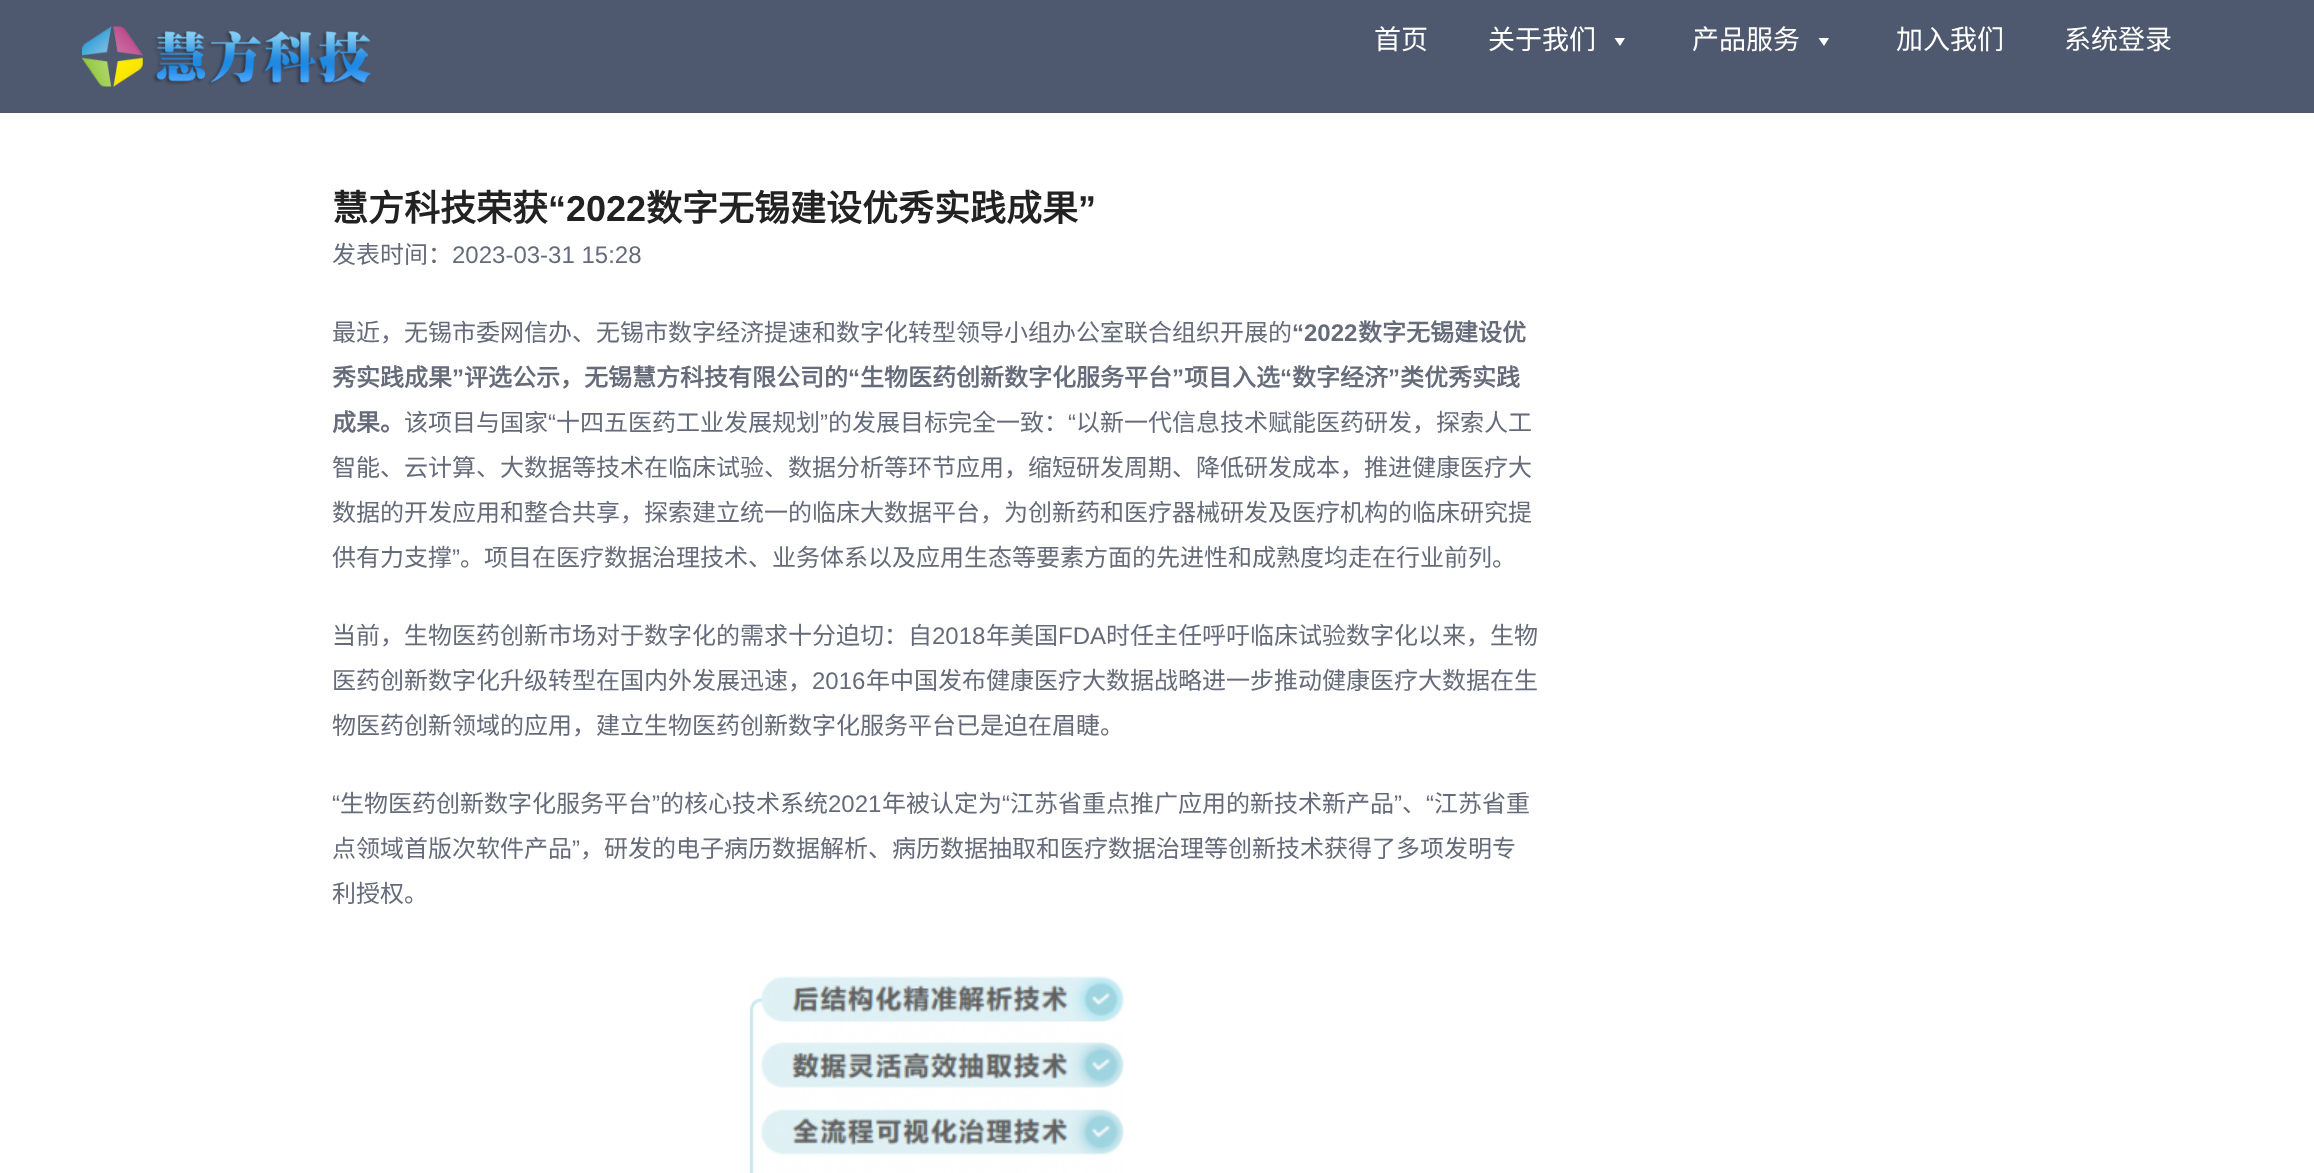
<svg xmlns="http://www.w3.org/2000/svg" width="2314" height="1173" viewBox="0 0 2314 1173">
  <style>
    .t1 { font: 27px Noto Sans CJK SC; fill: #fff; }
    .t2 { font: bold 36px Noto Sans CJK SC; fill: #222; }
    .t3 { font: bold 36px Liberation Sans; fill: #222; }
    .t4 { font: 24px Noto Sans CJK SC; fill: #656b7a; }
    .t5 { font: 24px Liberation Sans; fill: #656b7a; }
    .t6 { font: bold 24px Liberation Sans; fill: #656b7a; }
    .t7 { font: bold 24px Noto Sans CJK SC; fill: #656b7a; }
  </style>
  <rect width="100%" height="100%" fill="#fff"/>
  <rect x="0" y="0" width="2314" height="113" fill="#4e586e"/>
  <image x="82" y="26" width="289" height="61" href="images/1.png"/>
  <text x="1374" y="49" class="t1">首页</text>
  <text x="1488" y="49" class="t1">关于我们</text>
  <path d="M1625 38L1620 46L1614.5 38Z" fill="#fff"/>
  <text x="1692" y="49" class="t1">产品服务</text>
  <path d="M1829 38L1824 46L1818.5 38Z" fill="#fff"/>
  <text x="1896" y="49" class="t1">加入我们</text>
  <text x="2064" y="49" class="t1">系统登录</text>
  <text x="332" y="221" class="t2">慧方科技荣获</text>
  <text x="548" y="221" class="t3">“2022</text>
  <text x="646" y="221" class="t2">数字无锡建设优秀实践成果</text>
  <text x="1078" y="221" class="t3">”</text>
  <text x="332" y="263" class="t4">发表时间：</text>
  <text x="452" y="263" class="t5">2023-03-31 15:28</text>
  <text x="332" y="341" class="t4">最近，无锡市委网信办、无锡市数字经济提速和数字化转型领导小组办公室联合组织开展的</text>
  <text x="1292" y="341" class="t6">“2022</text>
  <text x="1358" y="341" class="t7">数字无锡建设优</text>
  <text x="332" y="386" class="t7">秀实践成果</text>
  <text x="452" y="386" class="t6">”</text>
  <text x="464" y="386" class="t7">评选公示，无锡慧方科技有限公司的</text>
  <text x="848" y="386" class="t6">“</text>
  <text x="860" y="386" class="t7">生物医药创新数字化服务平台</text>
  <text x="1172" y="386" class="t6">”</text>
  <text x="1184" y="386" class="t7">项目入选</text>
  <text x="1280" y="386" class="t6">“</text>
  <text x="1292" y="386" class="t7">数字经济</text>
  <text x="1388" y="386" class="t6">”</text>
  <text x="1400" y="386" class="t7">类优秀实践</text>
  <text x="332" y="431" class="t7">成果。</text>
  <text x="404" y="431" class="t4">该项目与国家</text>
  <text x="548" y="431" class="t5">“</text>
  <text x="556" y="431" class="t4">十四五医药工业发展规划</text>
  <text x="820" y="431" class="t5">”</text>
  <text x="828" y="431" class="t4">的发展目标完全一致：</text>
  <text x="1068" y="431" class="t5">“</text>
  <text x="1076" y="431" class="t4">以新一代信息技术赋能医药研发，探索人工</text>
  <text x="332" y="476" class="t4">智能、云计算、大数据等技术在临床试验、数据分析等环节应用，缩短研发周期、降低研发成本，推进健康医疗大</text>
  <text x="332" y="521" class="t4">数据的开发应用和整合共享，探索建立统一的临床大数据平台，为创新药和医疗器械研发及医疗机构的临床研究提</text>
  <text x="332" y="566" class="t4">供有力支撑</text>
  <text x="452" y="566" class="t5">”</text>
  <text x="460" y="566" class="t4">。项目在医疗数据治理技术、业务体系以及应用生态等要素方面的先进性和成熟度均走在行业前列。</text>
  <text x="332" y="644" class="t4">当前，生物医药创新市场对于数字化的需求十分迫切：自</text>
  <text x="932" y="644" class="t5">2018</text>
  <text x="986" y="644" class="t4">年美国</text>
  <text x="1058" y="644" class="t5">FDA</text>
  <text x="1106" y="644" class="t4">时任主任呼吁临床试验数字化以来，生物</text>
  <text x="332" y="689" class="t4">医药创新数字化升级转型在国内外发展迅速，</text>
  <text x="812" y="689" class="t5">2016</text>
  <text x="866" y="689" class="t4">年中国发布健康医疗大数据战略进一步推动健康医疗大数据在生</text>
  <text x="332" y="734" class="t4">物医药创新领域的应用，建立生物医药创新数字化服务平台已是迫在眉睫。</text>
  <text x="332" y="812" class="t5">“</text>
  <text x="340" y="812" class="t4">生物医药创新数字化服务平台</text>
  <text x="652" y="812" class="t5">”</text>
  <text x="660" y="812" class="t4">的核心技术系统</text>
  <text x="828" y="812" class="t5">2021</text>
  <text x="882" y="812" class="t4">年被认定为</text>
  <text x="1002" y="812" class="t5">“</text>
  <text x="1010" y="812" class="t4">江苏省重点推广应用的新技术新产品</text>
  <text x="1394" y="812" class="t5">”</text>
  <text x="1426" y="812" class="t5">“</text>
  <text x="1434" y="812" class="t4">江苏省重</text>
  <text x="1402" y="812" class="t4">、</text>
  <text x="332" y="857" class="t4">点领域首版次软件产品</text>
  <text x="572" y="857" class="t5">”</text>
  <text x="580" y="857" class="t4">，研发的电子病历数据解析、病历数据抽取和医疗数据治理等创新技术获得了多项发明专</text>
  <text x="332" y="902" class="t4">利授权。</text>
  <image x="749" y="976" width="375" height="197" href="images/2.png"/>
</svg>
